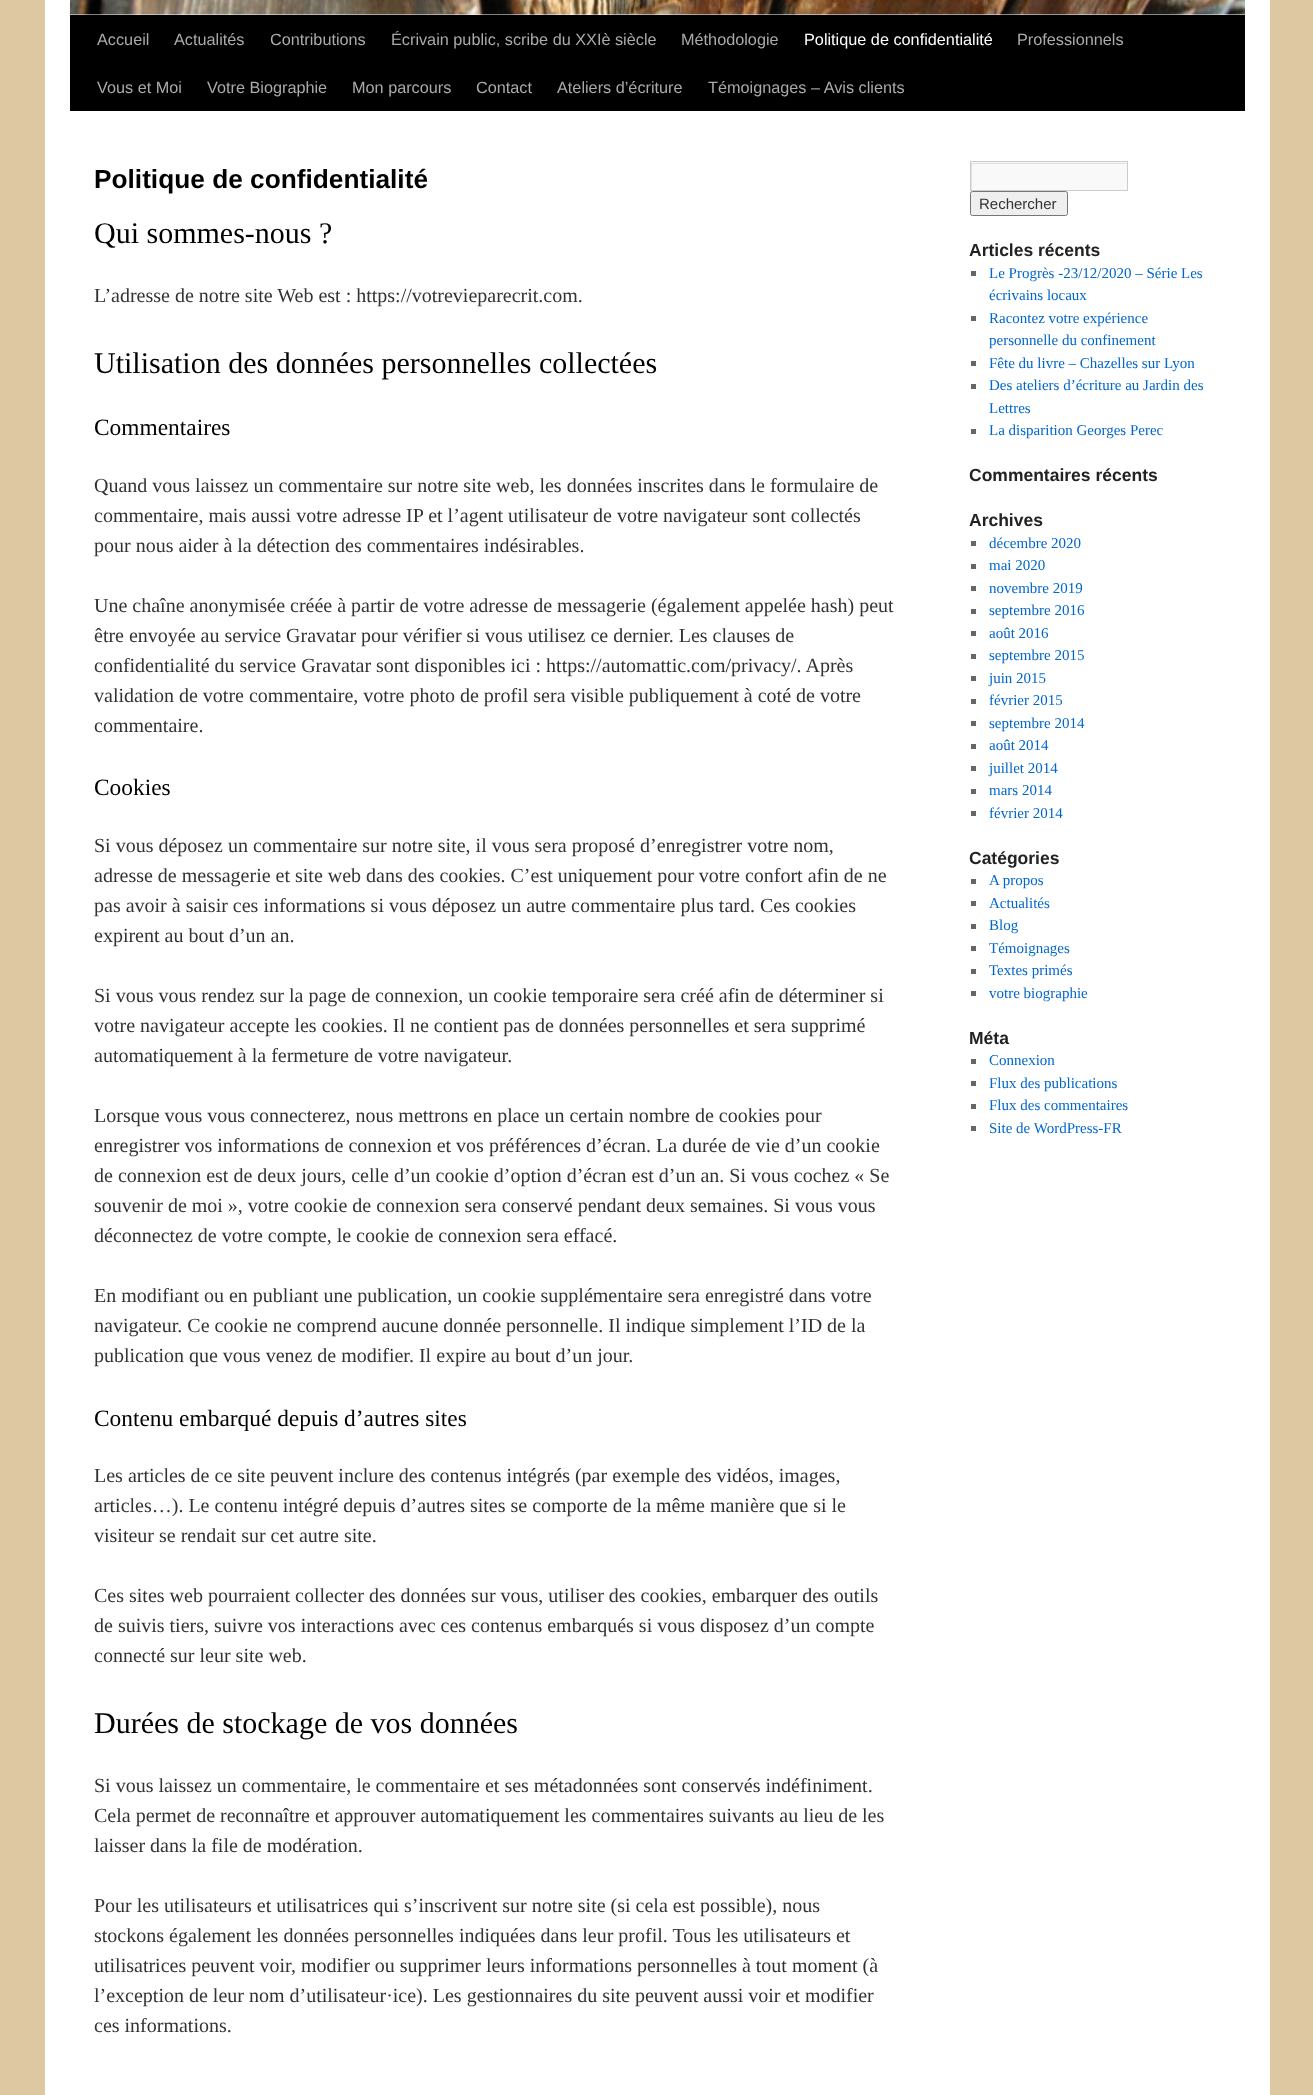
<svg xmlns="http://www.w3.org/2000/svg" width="1313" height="2095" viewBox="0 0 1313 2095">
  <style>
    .t1 { font: 16.25px Liberation Sans; fill: #aaa; }
    .t2 { font: 16.25px Liberation Sans; fill: #fff; }
    .t3 { font: bold 26.25px Liberation Sans; fill: #000; }
    .t4 { font: 30px Liberation Serif; fill: #000; }
    .t5 { font: 20px Liberation Serif; fill: #333; }
    .t6 { font: 23.4px Liberation Serif; fill: #000; }
    .t7 { font: 15px Liberation Sans; fill: #333; }
    .t8 { font: bold 17.5px Liberation Sans; fill: #222; }
    .t9 { font: 15px Liberation Serif; fill: #06c; }
  </style>
  <defs>
    <clipPath id="clip1"><rect x="971" y="163" width="155" height="27"/></clipPath>
  </defs>
  <rect width="100%" height="100%" fill="#ddc8a1"/>
  <rect x="45" y="0" width="1225" height="2095" fill="#fff"/>
  <rect x="70" y="15" width="1175" height="96" fill="#000"/>
  <image x="70" y="0" width="1175" height="15" href="images/1.png"/>
  <text x="97" y="45" class="t1">Accueil</text>
  <text x="174" y="45" class="t1">Actualités</text>
  <text x="270" y="45" class="t1">Contributions</text>
  <text x="391" y="45" class="t1">Écrivain public, scribe du XXIè siècle</text>
  <text x="681" y="45" class="t1">Méthodologie</text>
  <text x="804" y="45" class="t2">Politique de confidentialité</text>
  <text x="1017" y="45" class="t1">Professionnels</text>
  <text x="97" y="93" class="t1">Vous et Moi</text>
  <text x="207" y="93" class="t1">Votre Biographie</text>
  <text x="352" y="93" class="t1">Mon parcours</text>
  <text x="476" y="93" class="t1">Contact</text>
  <text x="557" y="93" class="t1">Ateliers d’écriture</text>
  <text x="708" y="93" class="t1">Témoignages – Avis clients</text>
  <text x="94" y="188" class="t3">Politique de confidentialité</text>
  <text x="94" y="243" class="t4">Qui sommes-nous ?</text>
  <text x="94" y="302" class="t5">L’adresse de notre site Web est : https://votrevieparecrit.com.</text>
  <text x="94" y="373" class="t4">Utilisation des données personnelles collectées</text>
  <text x="94" y="435" class="t6">Commentaires</text>
  <text x="94" y="492" class="t5">Quand vous laissez un commentaire sur notre site web, les données inscrites dans le formulaire de</text>
  <text x="94" y="522" class="t5">commentaire, mais aussi votre adresse IP et l’agent utilisateur de votre navigateur sont collectés</text>
  <text x="94" y="552" class="t5">pour nous aider à la détection des commentaires indésirables.</text>
  <text x="94" y="612" class="t5">Une chaîne anonymisée créée à partir de votre adresse de messagerie (également appelée hash) peut</text>
  <text x="94" y="642" class="t5">être envoyée au service Gravatar pour vérifier si vous utilisez ce dernier. Les clauses de</text>
  <text x="94" y="672" class="t5">confidentialité du service Gravatar sont disponibles ici : https://automattic.com/privacy/. Après</text>
  <text x="94" y="702" class="t5">validation de votre commentaire, votre photo de profil sera visible publiquement à coté de votre</text>
  <text x="94" y="732" class="t5">commentaire.</text>
  <text x="94" y="795" class="t6">Cookies</text>
  <text x="94" y="852" class="t5">Si vous déposez un commentaire sur notre site, il vous sera proposé d’enregistrer votre nom,</text>
  <text x="94" y="882" class="t5">adresse de messagerie et site web dans des cookies. C’est uniquement pour votre confort afin de ne</text>
  <text x="94" y="912" class="t5">pas avoir à saisir ces informations si vous déposez un autre commentaire plus tard. Ces cookies</text>
  <text x="94" y="942" class="t5">expirent au bout d’un an.</text>
  <text x="94" y="1002" class="t5">Si vous vous rendez sur la page de connexion, un cookie temporaire sera créé afin de déterminer si</text>
  <text x="94" y="1032" class="t5">votre navigateur accepte les cookies. Il ne contient pas de données personnelles et sera supprimé</text>
  <text x="94" y="1062" class="t5">automatiquement à la fermeture de votre navigateur.</text>
  <text x="94" y="1122" class="t5">Lorsque vous vous connecterez, nous mettrons en place un certain nombre de cookies pour</text>
  <text x="94" y="1152" class="t5">enregistrer vos informations de connexion et vos préférences d’écran. La durée de vie d’un cookie</text>
  <text x="94" y="1182" class="t5">de connexion est de deux jours, celle d’un cookie d’option d’écran est d’un an. Si vous cochez « Se</text>
  <text x="94" y="1212" class="t5">souvenir de moi », votre cookie de connexion sera conservé pendant deux semaines. Si vous vous</text>
  <text x="94" y="1242" class="t5">déconnectez de votre compte, le cookie de connexion sera effacé.</text>
  <text x="94" y="1302" class="t5">En modifiant ou en publiant une publication, un cookie supplémentaire sera enregistré dans votre</text>
  <text x="94" y="1332" class="t5">navigateur. Ce cookie ne comprend aucune donnée personnelle. Il indique simplement l’ID de la</text>
  <text x="94" y="1362" class="t5">publication que vous venez de modifier. Il expire au bout d’un jour.</text>
  <text x="94" y="1426" class="t6">Contenu embarqué depuis d’autres sites</text>
  <text x="94" y="1482" class="t5">Les articles de ce site peuvent inclure des contenus intégrés (par exemple des vidéos, images,</text>
  <text x="94" y="1512" class="t5">articles…). Le contenu intégré depuis d’autres sites se comporte de la même manière que si le</text>
  <text x="94" y="1542" class="t5">visiteur se rendait sur cet autre site.</text>
  <text x="94" y="1602" class="t5">Ces sites web pourraient collecter des données sur vous, utiliser des cookies, embarquer des outils</text>
  <text x="94" y="1632" class="t5">de suivis tiers, suivre vos interactions avec ces contenus embarqués si vous disposez d’un compte</text>
  <text x="94" y="1662" class="t5">connecté sur leur site web.</text>
  <text x="94" y="1733" class="t4">Durées de stockage de vos données</text>
  <text x="94" y="1792" class="t5">Si vous laissez un commentaire, le commentaire et ses métadonnées sont conservés indéfiniment.</text>
  <text x="94" y="1822" class="t5">Cela permet de reconnaître et approuver automatiquement les commentaires suivants au lieu de les</text>
  <text x="94" y="1852" class="t5">laisser dans la file de modération.</text>
  <text x="94" y="1912" class="t5">Pour les utilisateurs et utilisatrices qui s’inscrivent sur notre site (si cela est possible), nous</text>
  <text x="94" y="1942" class="t5">stockons également les données personnelles indiquées dans leur profil. Tous les utilisateurs et</text>
  <text x="94" y="1972" class="t5">utilisatrices peuvent voir, modifier ou supprimer leurs informations personnelles à tout moment (à</text>
  <text x="94" y="2002" class="t5">l’exception de leur nom d’utilisateur·ice). Les gestionnaires du site peuvent aussi voir et modifier</text>
  <text x="94" y="2032" class="t5">ces informations.</text>
  <rect x="971" y="162" width="156" height="28" fill="#f9f9f9"/>
  <g clip-path="url(#clip1)">
    <path d="M848 39H1250V314H848ZM972 164H1128V191H972Z" fill="#e0e0e0" fill-rule="evenodd"/>
  </g>
  <rect x="970.5" y="161.5" width="157" height="29" fill="none" stroke="#ccc"/>
  <rect x="970.5" y="191.5" width="97" height="24" rx="2" fill="#efefef" stroke="#767676"/>
  <text x="979" y="209" class="t7">Rechercher</text>
  <text x="969" y="256" class="t8">Articles récents</text>
  <rect x="971" y="271" width="5" height="5" fill="#666"/>
  <text x="989" y="278" class="t9">Le Progrès -23/12/2020 – Série Les</text>
  <text x="989" y="300" class="t9">écrivains locaux</text>
  <rect x="971" y="316" width="5" height="5" fill="#666"/>
  <text x="989" y="323" class="t9">Racontez votre expérience</text>
  <text x="989" y="345" class="t9">personnelle du confinement</text>
  <rect x="971" y="361" width="5" height="5" fill="#666"/>
  <text x="989" y="368" class="t9">Fête du livre – Chazelles sur Lyon</text>
  <rect x="971" y="384" width="5" height="5" fill="#666"/>
  <text x="989" y="390" class="t9">Des ateliers d’écriture au Jardin des</text>
  <text x="989" y="413" class="t9">Lettres</text>
  <rect x="971" y="429" width="5" height="5" fill="#666"/>
  <text x="989" y="435" class="t9">La disparition Georges Perec</text>
  <text x="969" y="481" class="t8">Commentaires récents</text>
  <text x="969" y="526" class="t8">Archives</text>
  <rect x="971" y="541" width="5" height="5" fill="#666"/>
  <text x="989" y="548" class="t9">décembre 2020</text>
  <rect x="971" y="564" width="5" height="5" fill="#666"/>
  <text x="989" y="570" class="t9">mai 2020</text>
  <rect x="971" y="586" width="5" height="5" fill="#666"/>
  <text x="989" y="593" class="t9">novembre 2019</text>
  <rect x="971" y="609" width="5" height="5" fill="#666"/>
  <text x="989" y="615" class="t9">septembre 2016</text>
  <rect x="971" y="631" width="5" height="5" fill="#666"/>
  <text x="989" y="638" class="t9">août 2016</text>
  <rect x="971" y="654" width="5" height="5" fill="#666"/>
  <text x="989" y="660" class="t9">septembre 2015</text>
  <rect x="971" y="676" width="5" height="5" fill="#666"/>
  <text x="989" y="683" class="t9">juin 2015</text>
  <rect x="971" y="699" width="5" height="5" fill="#666"/>
  <text x="989" y="705" class="t9">février 2015</text>
  <rect x="971" y="721" width="5" height="5" fill="#666"/>
  <text x="989" y="728" class="t9">septembre 2014</text>
  <rect x="971" y="744" width="5" height="5" fill="#666"/>
  <text x="989" y="750" class="t9">août 2014</text>
  <rect x="971" y="766" width="5" height="5" fill="#666"/>
  <text x="989" y="773" class="t9">juillet 2014</text>
  <rect x="971" y="789" width="5" height="5" fill="#666"/>
  <text x="989" y="795" class="t9">mars 2014</text>
  <rect x="971" y="811" width="5" height="5" fill="#666"/>
  <text x="989" y="818" class="t9">février 2014</text>
  <text x="969" y="864" class="t8">Catégories</text>
  <rect x="971" y="879" width="5" height="5" fill="#666"/>
  <text x="989" y="885" class="t9">A propos</text>
  <rect x="971" y="901" width="5" height="5" fill="#666"/>
  <text x="989" y="908" class="t9">Actualités</text>
  <rect x="971" y="924" width="5" height="5" fill="#666"/>
  <text x="989" y="930" class="t9">Blog</text>
  <rect x="971" y="946" width="5" height="5" fill="#666"/>
  <text x="989" y="953" class="t9">Témoignages</text>
  <rect x="971" y="969" width="5" height="5" fill="#666"/>
  <text x="989" y="975" class="t9">Textes primés</text>
  <rect x="971" y="991" width="5" height="5" fill="#666"/>
  <text x="989" y="998" class="t9">votre biographie</text>
  <text x="969" y="1044" class="t8">Méta</text>
  <rect x="971" y="1059" width="5" height="5" fill="#666"/>
  <text x="989" y="1065" class="t9">Connexion</text>
  <rect x="971" y="1081" width="5" height="5" fill="#666"/>
  <text x="989" y="1088" class="t9">Flux des publications</text>
  <rect x="971" y="1104" width="5" height="5" fill="#666"/>
  <text x="989" y="1110" class="t9">Flux des commentaires</text>
  <rect x="971" y="1126" width="5" height="5" fill="#666"/>
  <text x="989" y="1133" class="t9">Site de WordPress-FR</text>
</svg>
